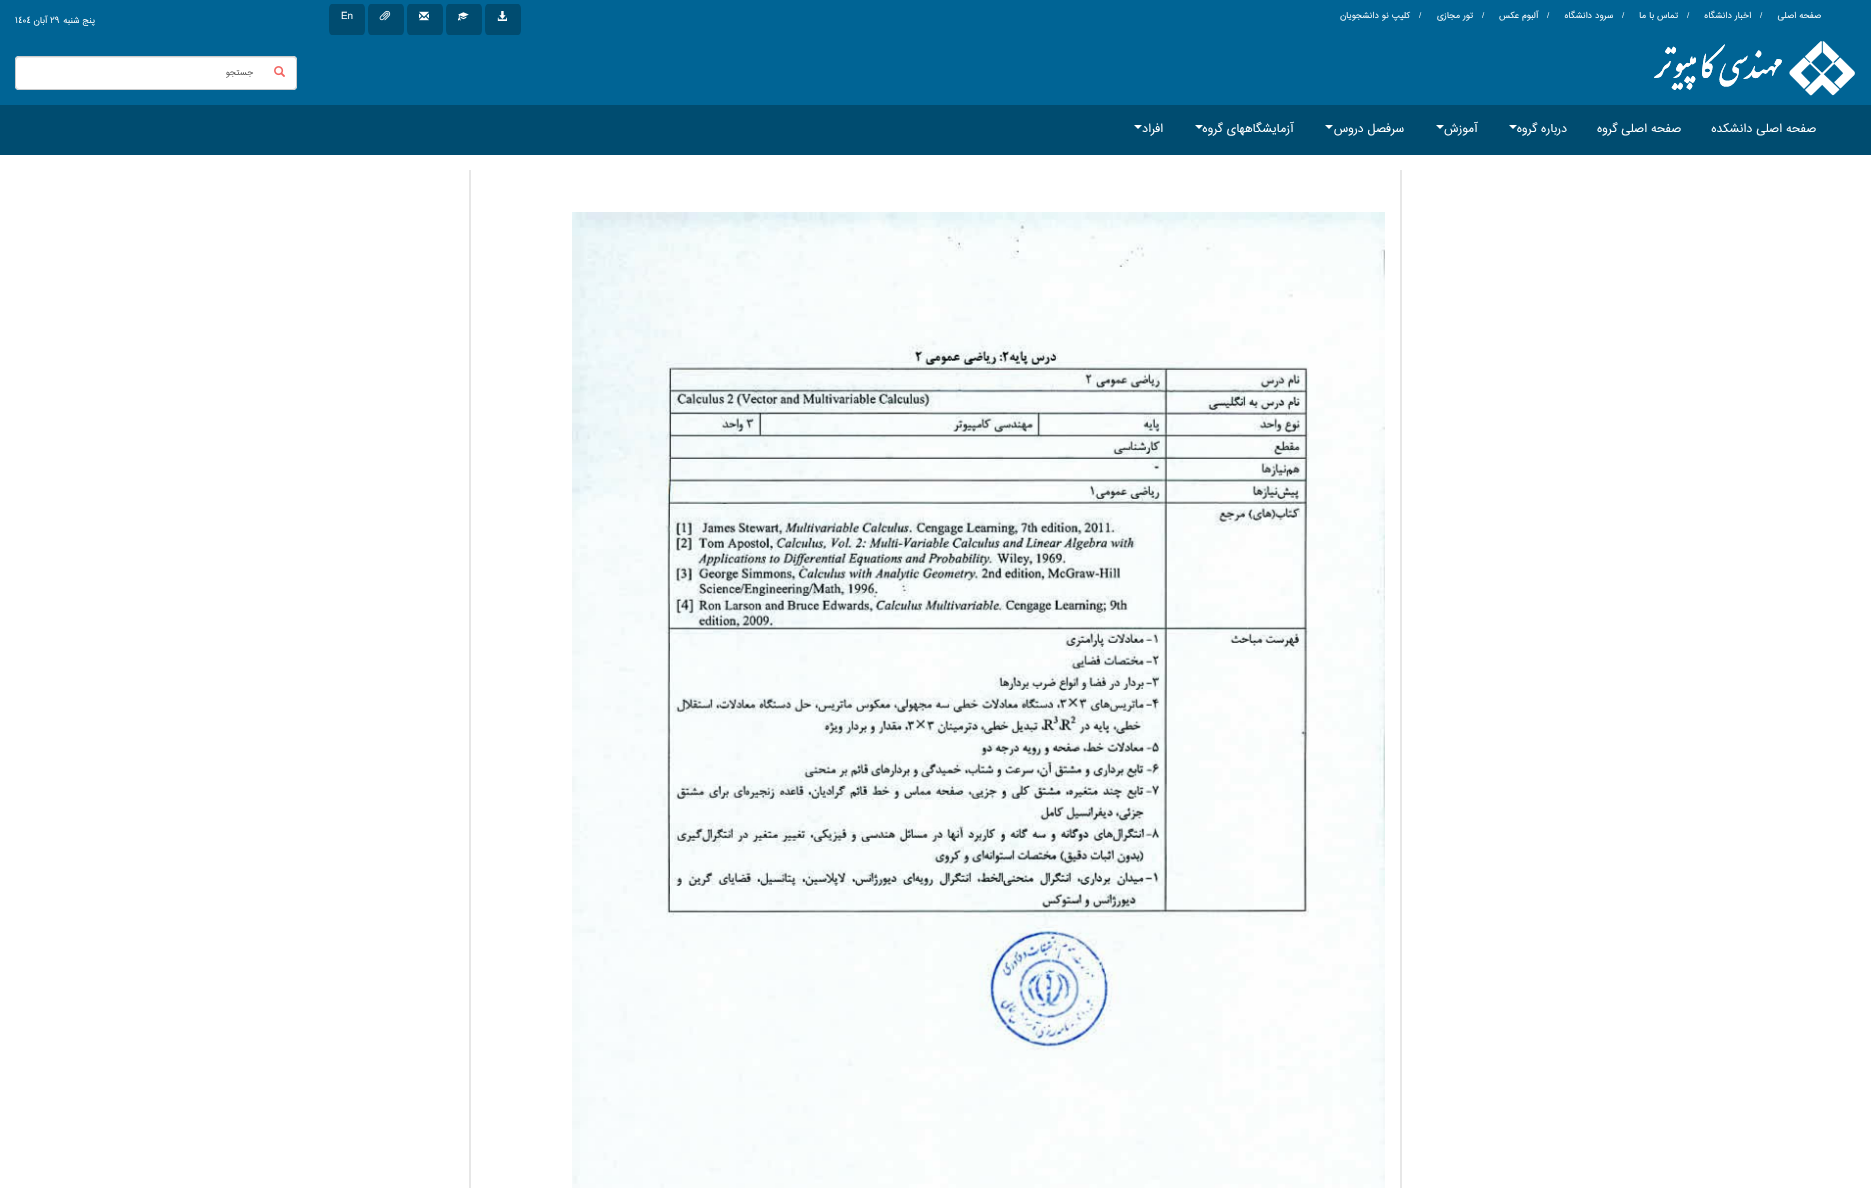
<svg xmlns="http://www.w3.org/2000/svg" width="1871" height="1188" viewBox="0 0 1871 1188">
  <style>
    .t1 { font: 8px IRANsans; direction: rtl; fill: #fff; }
    .t2 { font: 8px IRANsans; fill: #fff; }
    .t3 { font: 10px IRANsans; fill: #fff; }
    .t4 { font: 8px IRANsans; direction: rtl; fill: #555; }
    .t5 { font: 11px IRANsans; direction: rtl; fill: #fff; }
  </style>
  <rect width="100%" height="100%" fill="#fff"/>
  <rect x="0" y="0" width="1871" height="105" fill="#006495"/>
  <text x="1821" y="18" class="t1">صفحه اصلی</text>
  <text x="1760" y="18" class="t2">/</text>
  <text x="1751" y="18" class="t1">اخبار دانشگاه</text>
  <text x="1687" y="18" class="t2">/</text>
  <text x="1678" y="18" class="t1">تماس با ما</text>
  <text x="1622" y="18" class="t2">/</text>
  <text x="1613" y="18" class="t1">سرود دانشگاه</text>
  <text x="1547" y="18" class="t2">/</text>
  <text x="1538" y="18" class="t1">آلبوم عکس</text>
  <text x="1482" y="18" class="t2">/</text>
  <text x="1473" y="18" class="t1">تور مجازی</text>
  <text x="1419" y="18" class="t2">/</text>
  <text x="1410" y="18" class="t1">کلیپ نو دانشجویان</text>
  <path d="M488 4H518C519.5 4 521 6 521 9V30C521 33 519.5 35 518 35H488C486.5 35 485 33 485 30V9C485 6 486.5 4 488 4Z" fill="#004c70"/>
  <image x="497" y="11" width="10" height="10" href="images/1.png"/>
  <path d="M449 4H479C480.5 4 482 6 482 9V30C482 33 480.5 35 479 35H449C447.5 35 446 33 446 30V9C446 6 447.5 4 449 4Z" fill="#004c70"/>
  <image x="458" y="12" width="11" height="9" href="images/2.png"/>
  <path d="M410 4H440C441.5 4 443 6 443 9V30C443 33 441.5 35 440 35H410C408.5 35 407 33 407 30V9C407 6 408.5 4 410 4Z" fill="#004c70"/>
  <image x="419" y="11" width="10" height="10" href="images/3.png"/>
  <path d="M371 4H401C402.5 4 404 6 404 9V30C404 33 402.5 35 401 35H371C369.5 35 368 33 368 30V9C368 6 369.5 4 371 4Z" fill="#004c70"/>
  <image x="379" y="10" width="12" height="11" href="images/4.png"/>
  <path d="M332 4H362C363.5 4 365 6 365 9V30C365 33 363.5 35 362 35H332C330.5 35 329 33 329 30V9C329 6 330.5 4 332 4Z" fill="#004c70"/>
  <text x="341" y="19" class="t3">En</text>
  <text x="95" y="23" class="t1">پنج شنبه</text>
  <text x="50" y="23" class="t2">٢٩</text>
  <text x="47" y="23" class="t1">آبان</text>
  <text x="15" y="23" class="t2">١٤٠٤</text>
  <image x="1654" y="41" width="201" height="55" href="images/5.png"/>
  <rect x="15" y="56" width="282" height="34" rx="4" fill="#fff"/>
  <path d="M19 58H293C295 58 296 59 296 61V60C296 58 295 57 293 57H19C17 57 16 58 16 60V61C16 59 17 58 19 58Z" fill="#ececec"/>
  <rect x="15.5" y="56.5" width="281" height="33" rx="3.5" fill="none" stroke="#ccc"/>
  <image x="274" y="66" width="11" height="11" href="images/6.png"/>
  <text x="253" y="75" class="t4">جستجو</text>
  <rect x="0" y="105" width="1871" height="50" fill="#004c70"/>
  <text x="1816" y="132" class="t5">صفحه اصلی دانشکده</text>
  <text x="1681" y="132" class="t5">صفحه اصلی گروه</text>
  <text x="1567" y="132" class="t5">درباره گروه</text>
  <path d="M1509 125H1517L1513 129Z" fill="#fff"/>
  <text x="1477" y="132" class="t5">آموزش</text>
  <path d="M1436 125H1444L1440 129Z" fill="#fff"/>
  <text x="1404" y="132" class="t5">سرفصل دروس</text>
  <path d="M1325 125H1333L1329 129Z" fill="#fff"/>
  <text x="1293" y="132" class="t5">آزمایشگاههای گروه</text>
  <path d="M1195 125H1203L1199 129Z" fill="#fff"/>
  <text x="1163" y="132" class="t5">افراد</text>
  <path d="M1134 125H1142L1138 129Z" fill="#fff"/>
  <rect x="1400" y="170" width="2" height="1018" fill="#e7e7e7"/>
  <rect x="469" y="170" width="2" height="1018" fill="#e7e7e7"/>
  <image x="572" y="212" width="813" height="976" href="images/7.png"/>
</svg>
